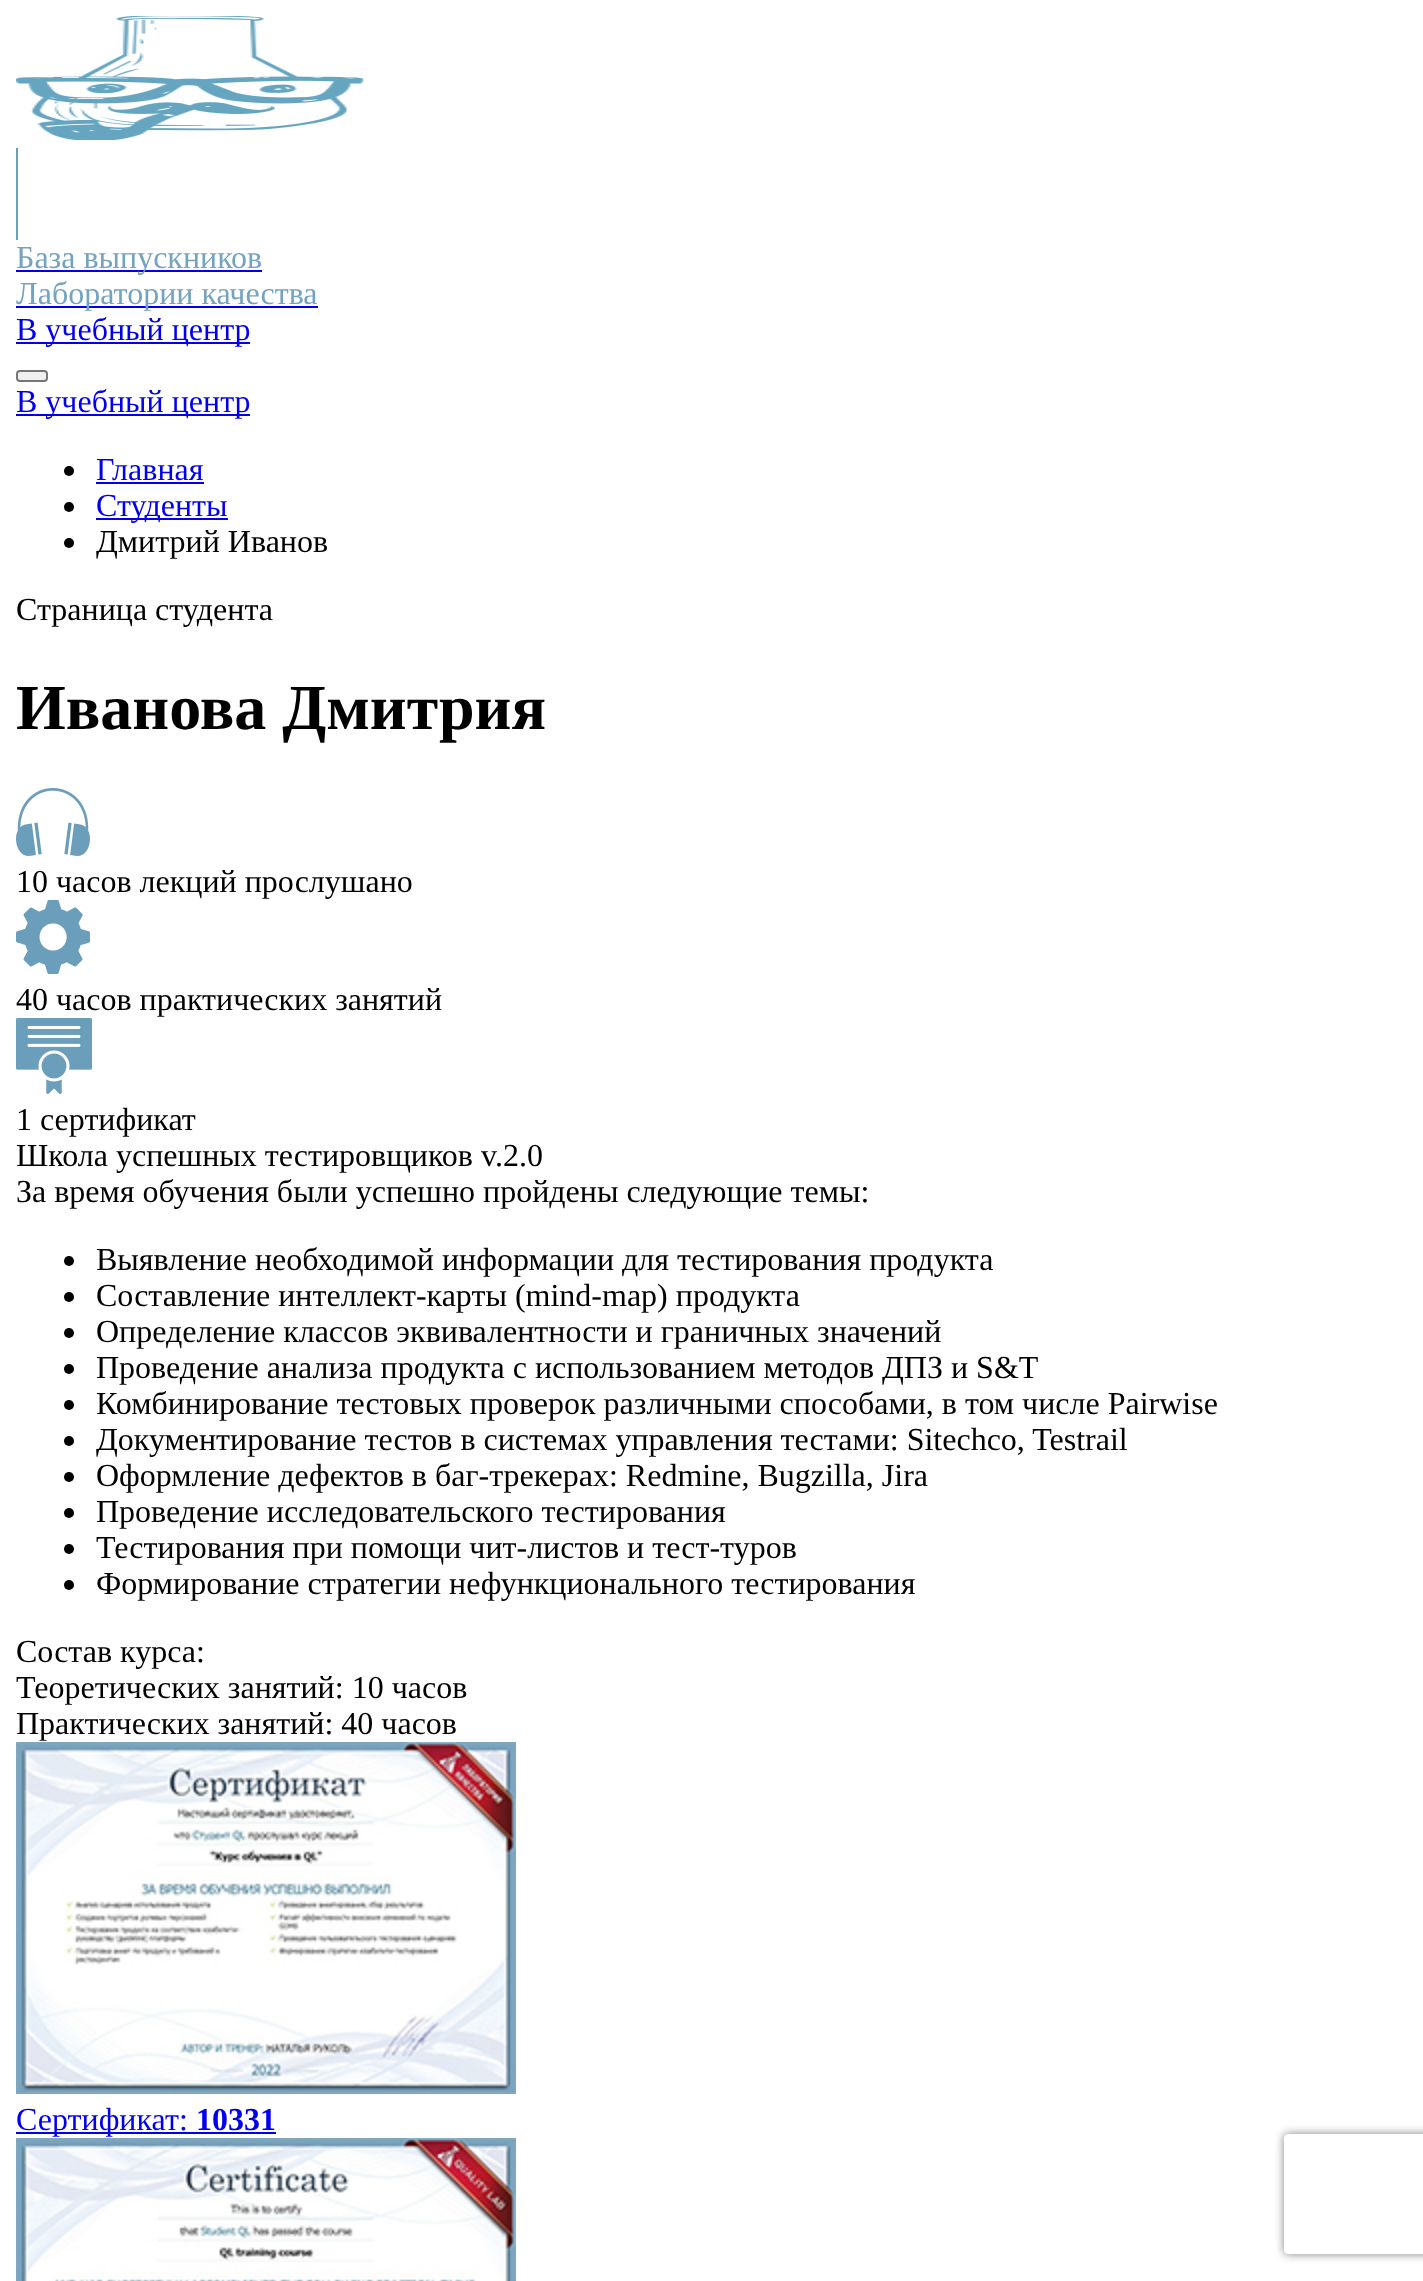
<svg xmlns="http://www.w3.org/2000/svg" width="1423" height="2281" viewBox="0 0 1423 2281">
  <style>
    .t1 { font: 32px Liberation Serif; fill: #74a3bd; }
    .t2 { font: 32px Liberation Serif; fill: #00e; }
    .t3 { font: 32px Liberation Serif; fill: #000; }
    .t4 { font: bold 64px Liberation Serif; fill: #000; }
    .t5 { font: bold 32px Liberation Serif; fill: #00e; }
  </style>
  <defs>
    <clipPath id="clip1"><path d="M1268 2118H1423V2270H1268ZM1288 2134H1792C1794 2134 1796 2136 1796 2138V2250C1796 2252 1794 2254 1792 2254H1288C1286 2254 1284 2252 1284 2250V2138C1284 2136 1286 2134 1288 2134Z" clip-rule="evenodd"/></clipPath>
  </defs>
  <rect width="100%" height="100%" fill="#fff"/>
  <image x="16" y="16" width="348" height="124" href="images/1.png"/>
  <rect x="16" y="148" width="2" height="92" fill="#6b9eba"/>
  <rect x="16" y="270" width="246" height="2" fill="#00e"/>
  <text x="16" y="268" class="t1">База выпускников</text>
  <rect x="16" y="306" width="302" height="2" fill="#00e"/>
  <text x="16" y="304" class="t1">Лаборатории качества</text>
  <rect x="16" y="342" width="234" height="2" fill="#00e"/>
  <text x="16" y="340" class="t2">В учебный центр</text>
  <rect x="17" y="371" width="30" height="10" rx="3" fill="#efefef" stroke="#767676" stroke-width="2"/>
  <rect x="16" y="414" width="234" height="2" fill="#00e"/>
  <text x="16" y="412" class="t2">В учебный центр</text>
  <circle cx="69" cy="471" r="5" fill="#000"/>
  <text x="96" y="480" class="t2">Главная</text>
  <rect x="96" y="482" width="108" height="2" fill="#00e"/>
  <circle cx="69" cy="507" r="5" fill="#000"/>
  <rect x="96" y="518" width="132" height="2" fill="#00e"/>
  <text x="96" y="516" class="t2">Студенты</text>
  <circle cx="69" cy="543" r="5" fill="#000"/>
  <text x="96" y="552" class="t3">Дмитрий Иванов</text>
  <text x="16" y="620" class="t3">Страница студента</text>
  <text x="16" y="729" class="t4">Иванова Дмитрия</text>
  <image x="16" y="788" width="74" height="68" href="images/2.png"/>
  <text x="16" y="892" class="t3">10 часов лекций прослушано</text>
  <image x="16" y="900" width="74" height="74" href="images/3.png"/>
  <text x="16" y="1010" class="t3">40 часов практических занятий</text>
  <image x="16" y="1018" width="76" height="76" href="images/4.png"/>
  <text x="16" y="1130" class="t3">1 сертификат</text>
  <text x="16" y="1166" class="t3">Школа успешных тестировщиков v.2.0</text>
  <text x="16" y="1202" class="t3">За время обучения были успешно пройдены следующие темы:</text>
  <circle cx="69" cy="1261" r="5" fill="#000"/>
  <text x="96" y="1270" class="t3">Выявление необходимой информации для тестирования продукта</text>
  <circle cx="69" cy="1297" r="5" fill="#000"/>
  <text x="96" y="1306" class="t3">Составление интеллект-карты (mind-map) продукта</text>
  <circle cx="69" cy="1333" r="5" fill="#000"/>
  <text x="96" y="1342" class="t3">Определение классов эквивалентности и граничных значений</text>
  <circle cx="69" cy="1369" r="5" fill="#000"/>
  <text x="96" y="1378" class="t3">Проведение анализа продукта с использованием методов ДПЗ и S&amp;T</text>
  <circle cx="69" cy="1405" r="5" fill="#000"/>
  <text x="96" y="1414" class="t3">Комбинирование тестовых проверок различными способами, в том числе Pairwise</text>
  <circle cx="69" cy="1441" r="5" fill="#000"/>
  <text x="96" y="1450" class="t3">Документирование тестов в системах управления тестами: Sitechсo, Testrail</text>
  <circle cx="69" cy="1477" r="5" fill="#000"/>
  <text x="96" y="1486" class="t3">Оформление дефектов в баг-трекерах: Redmine, Bugzilla, Jira</text>
  <circle cx="69" cy="1513" r="5" fill="#000"/>
  <text x="96" y="1522" class="t3">Проведение исследовательского тестирования</text>
  <circle cx="69" cy="1549" r="5" fill="#000"/>
  <text x="96" y="1558" class="t3">Тестирования при помощи чит-листов и тест-туров</text>
  <circle cx="69" cy="1585" r="5" fill="#000"/>
  <text x="96" y="1594" class="t3">Формирование стратегии нефункционального тестирования</text>
  <text x="16" y="1662" class="t3">Состав курса:</text>
  <text x="16" y="1698" class="t3">Теоретических занятий: 10 часов</text>
  <text x="16" y="1734" class="t3">Практических занятий: 40 часов</text>
  <image x="16" y="1742" width="500" height="352" href="images/5.png"/>
  <rect x="16" y="2132" width="260" height="2" fill="#00e"/>
  <text x="16" y="2130" class="t2">Сертификат:</text>
  <text x="196" y="2130" class="t5">10331</text>
  <image x="16" y="2138" width="500" height="143" href="images/6.png"/>
  <g clip-path="url(#clip1)">
    <rect x="1284" y="2134" width="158" height="120" rx="4" fill="#808080" filter="blur(5px)"/>
  </g>
</svg>
